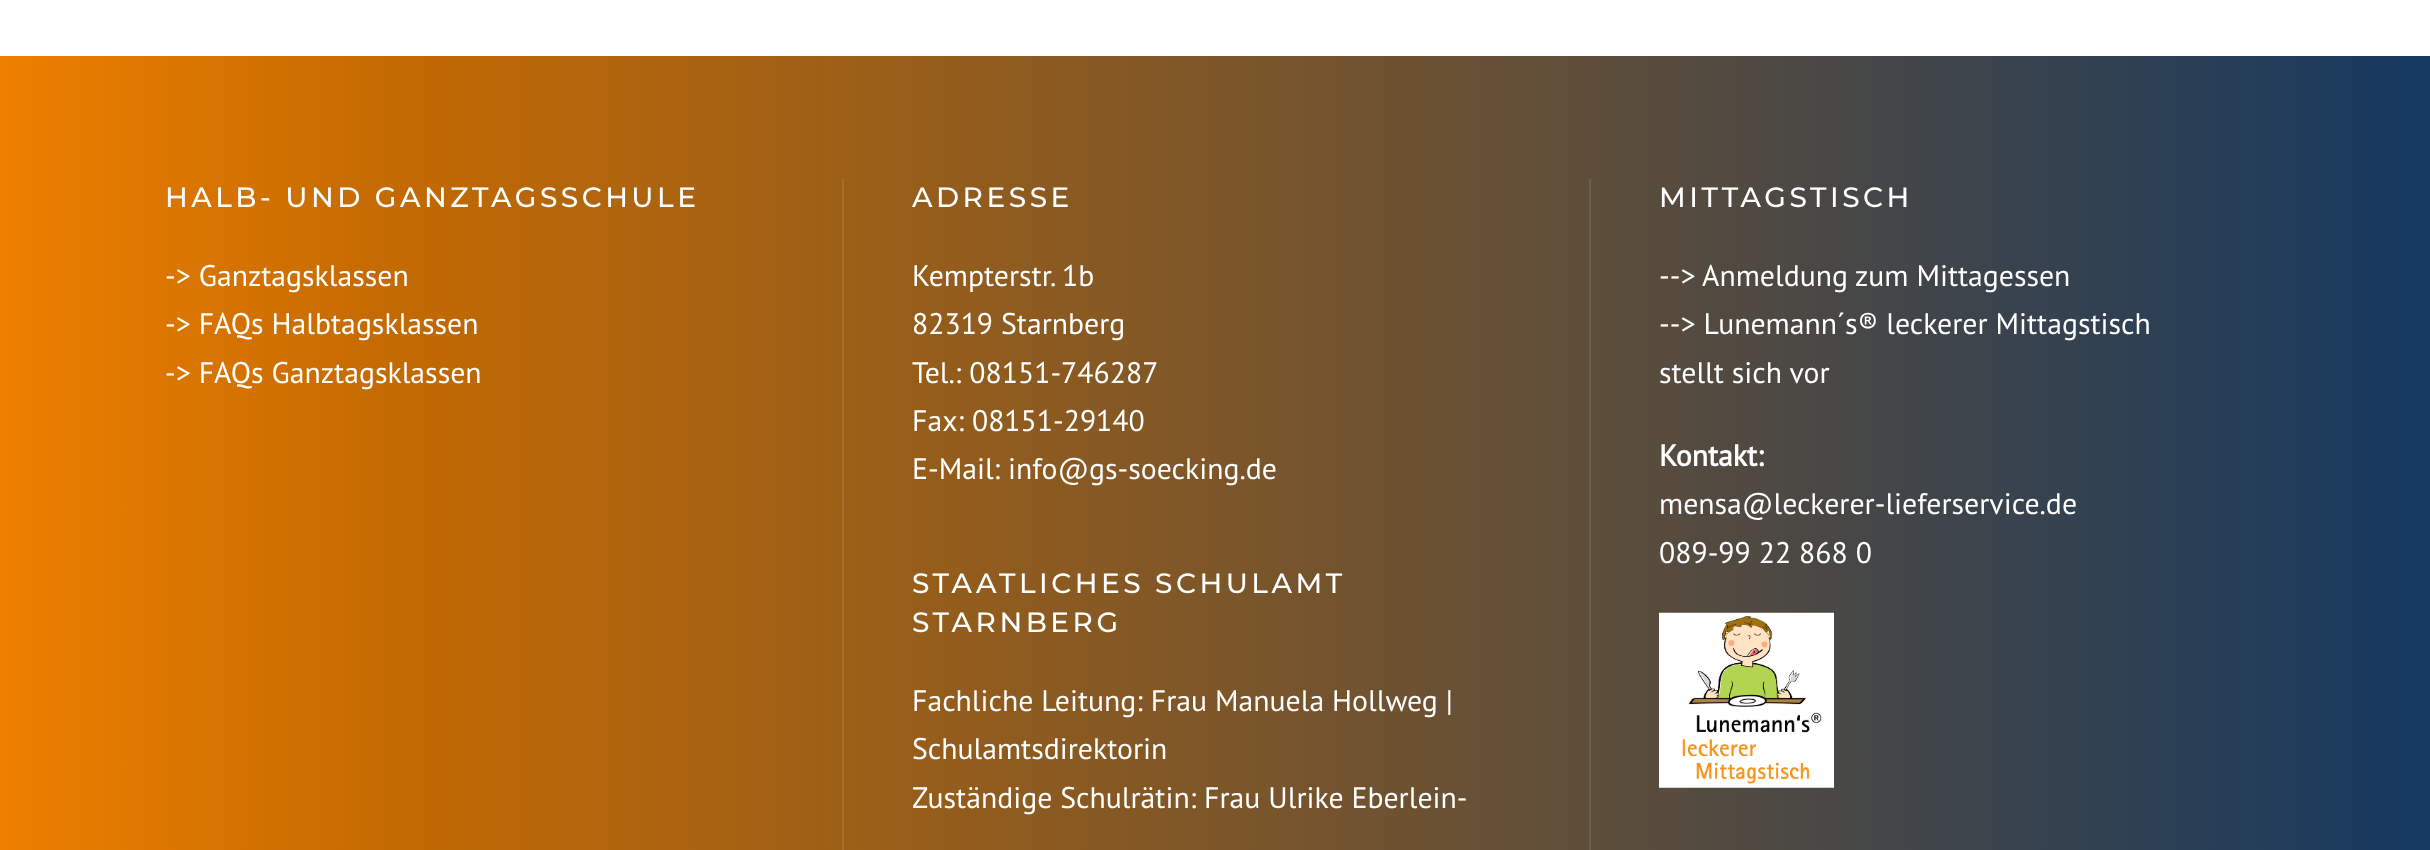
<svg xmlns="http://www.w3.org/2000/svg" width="2430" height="850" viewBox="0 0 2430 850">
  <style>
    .t1 { font: 100 28px Montserrat; letter-spacing: 3.5px; fill: #fff; }
    .t2 { font: 29.75px PT Sans; fill: #fff; }
    .t3 { font: bold 29.75px PT Sans; fill: #fff; }
  </style>
  <defs>
    <linearGradient id="g1" gradientUnits="userSpaceOnUse" x1="0" y1="598" x2="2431" y2="598"><stop offset="0" stop-color="#ee7f00"/><stop offset="0.16" stop-color="#c46a02"/><stop offset="1" stop-color="#153961"/></linearGradient>
  </defs>
  <rect width="100%" height="100%" fill="#fff"/>
  <rect x="0" y="56" width="2430" height="794" fill="url(#g1)"/>
  <text x="165" y="207" class="t1">HALB- UND GANZTAGSSCHULE</text>
  <text x="165" y="286" class="t2">-&gt; Ganztagsklassen</text>
  <text x="165" y="334" class="t2">-&gt; FAQs Halbtagsklassen</text>
  <text x="165" y="383" class="t2">-&gt; FAQs Ganztagsklassen</text>
  <rect x="842" y="179" width="2" height="671" fill="#a76f2e"/>
  <text x="912" y="207" class="t1">ADRESSE</text>
  <text x="912" y="286" class="t2">Kempterstr. 1b</text>
  <text x="912" y="334" class="t2">82319 Starnberg</text>
  <text x="912" y="383" class="t2">Tel.: 08151-746287</text>
  <text x="912" y="431" class="t2">Fax: 08151-29140</text>
  <text x="912" y="479" class="t2">E-Mail: info@gs-soecking.de</text>
  <text x="912" y="593" class="t1">STAATLICHES SCHULAMT</text>
  <text x="912" y="632" class="t1">STARNBERG</text>
  <text x="912" y="711" class="t2">Fachliche Leitung: Frau Manuela Hollweg |</text>
  <text x="912" y="759" class="t2">Schulamtsdirektorin</text>
  <text x="912" y="808" class="t2">Zuständige Schulrätin: Frau Ulrike Eberlein-</text>
  <rect x="1589" y="179" width="2" height="671" fill="#6d5f4e"/>
  <text x="1659" y="207" class="t1">MITTAGSTISCH</text>
  <text x="1659" y="286" class="t2">--&gt;</text>
  <text x="1702" y="286" class="t2">Anmeldung zum Mittagessen</text>
  <text x="1659" y="334" class="t2">--&gt; Lunemann´s® leckerer Mittagstisch</text>
  <text x="1659" y="383" class="t2">stellt sich vor</text>
  <text x="1659" y="466" class="t3">Kontakt:</text>
  <text x="1659" y="514" class="t2">mensa@leckerer-lieferservice.de</text>
  <text x="1659" y="563" class="t2">089-99 22 868 0</text>
  <image x="1659" y="612" width="175" height="176" href="images/1.png"/>
</svg>
